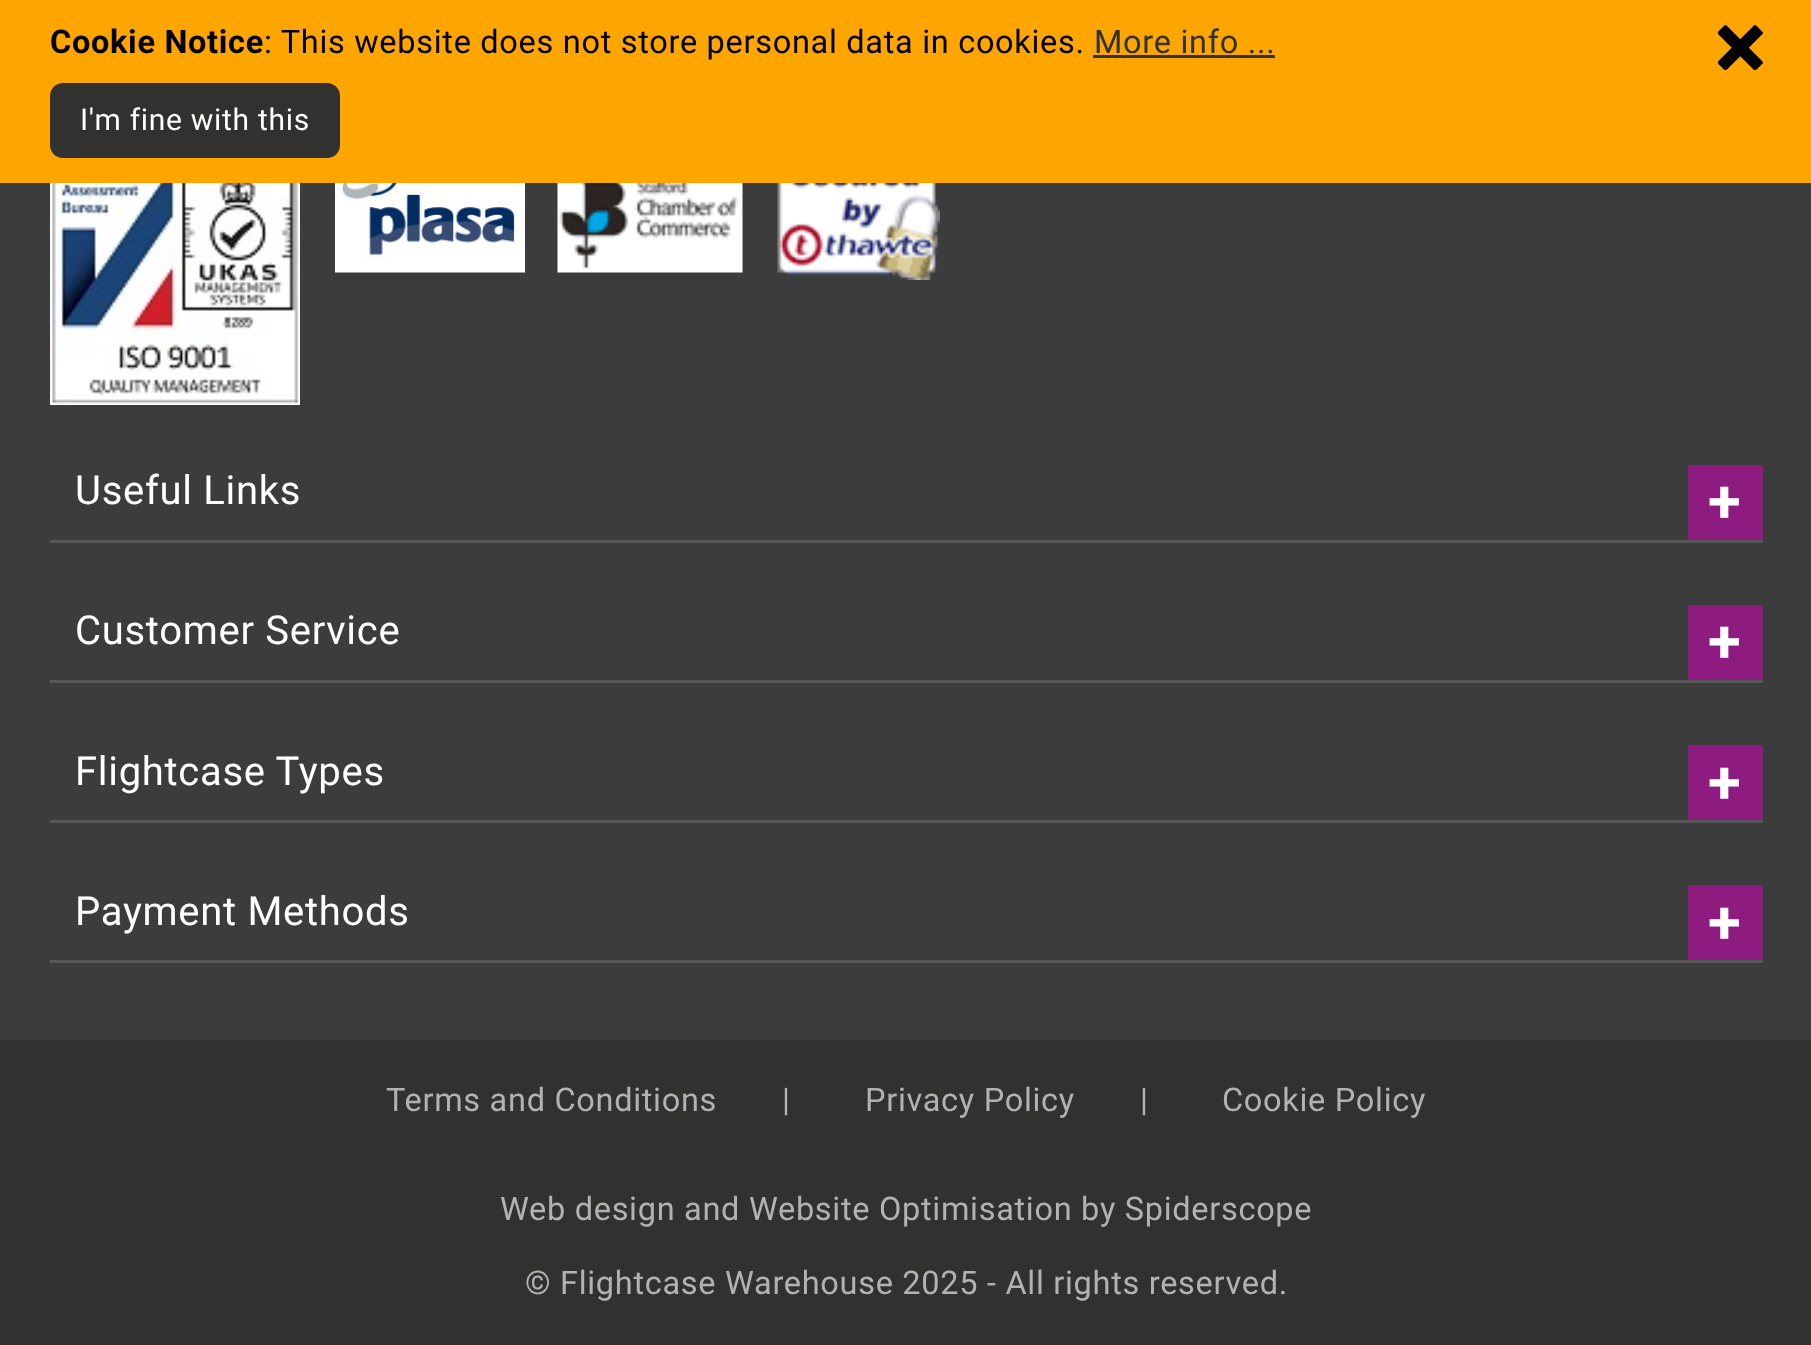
<svg xmlns="http://www.w3.org/2000/svg" width="1811" height="1345" viewBox="0 0 1811 1345">
  <style>
    .t1 { font: bold 32.5px Roboto; letter-spacing: 0.7px; fill: #000; }
    .t2 { font: 32.5px Roboto; letter-spacing: 0.7px; fill: #000; }
    .t3 { font: 32.5px Roboto; letter-spacing: 0.7px; fill: #313130; }
    .t4 { font: 30px Roboto; letter-spacing: 0.7px; fill: #fff; }
    .t5 { font: 40px Roboto; letter-spacing: 0.7px; fill: #fff; }
    .t6 { font: bold 60px Roboto; letter-spacing: 0.7px; fill: #fff; }
    .t7 { font: 32.5px Roboto; letter-spacing: 0.7px; fill: #b2b2b2; }
  </style>
  <rect width="100%" height="100%" fill="#3c3c3c"/>
  <rect x="0" y="0" width="1811" height="183" fill="#ffa500"/>
  <text x="50" y="53" class="t1">Cookie Notice</text>
  <text x="264" y="53" class="t2">: This website does not store personal data in cookies.</text>
  <text x="1094" y="53" class="t3">More info ...</text>
  <rect x="1093" y="55" width="182" height="3" fill="#313130"/>
  <image x="1718" y="25" width="45" height="45" href="images/1.png"/>
  <rect x="50" y="83" width="290" height="75" rx="13" fill="#313130"/>
  <text x="80" y="130" class="t4">I'm fine with this</text>
  <image x="50" y="183" width="250" height="222" href="images/2.png"/>
  <image x="335" y="183" width="190" height="90" href="images/3.png"/>
  <image x="557" y="183" width="186" height="90" href="images/4.png"/>
  <image x="777" y="183" width="163" height="97" href="images/5.png"/>
  <rect x="50" y="540" width="1713" height="3" fill="#565656"/>
  <text x="75" y="504" class="t5">Useful Links</text>
  <rect x="1688" y="465" width="75" height="75" fill="#8e1b80"/>
  <text x="1708" y="522" class="t6">+</text>
  <rect x="50" y="680" width="1713" height="3" fill="#565656"/>
  <text x="75" y="644" class="t5">Customer Service</text>
  <rect x="1688" y="605" width="75" height="75" fill="#8e1b80"/>
  <text x="1708" y="662" class="t6">+</text>
  <rect x="50" y="820" width="1713" height="3" fill="#565656"/>
  <text x="75" y="785" class="t5">Flightcase Types</text>
  <rect x="1688" y="745" width="75" height="75" fill="#8e1b80"/>
  <text x="1708" y="803" class="t6">+</text>
  <rect x="50" y="960" width="1713" height="3" fill="#565656"/>
  <text x="75" y="925" class="t5">Payment Methods</text>
  <rect x="1688" y="885" width="75" height="75" fill="#8e1b80"/>
  <text x="1708" y="943" class="t6">+</text>
  <rect x="0" y="1040" width="1811" height="305" fill="#313130"/>
  <text x="386" y="1111" class="t7">Terms and Conditions</text>
  <text x="782" y="1111" class="t7">|</text>
  <text x="865" y="1111" class="t7">Privacy Policy</text>
  <text x="1140" y="1111" class="t7">|</text>
  <text x="1222" y="1111" class="t7">Cookie Policy</text>
  <text x="500" y="1220" class="t7">Web design and Website Optimisation by Spiderscope</text>
  <text x="525" y="1294" class="t7">© Flightcase Warehouse 2025 - All rights reserved.</text>
</svg>
